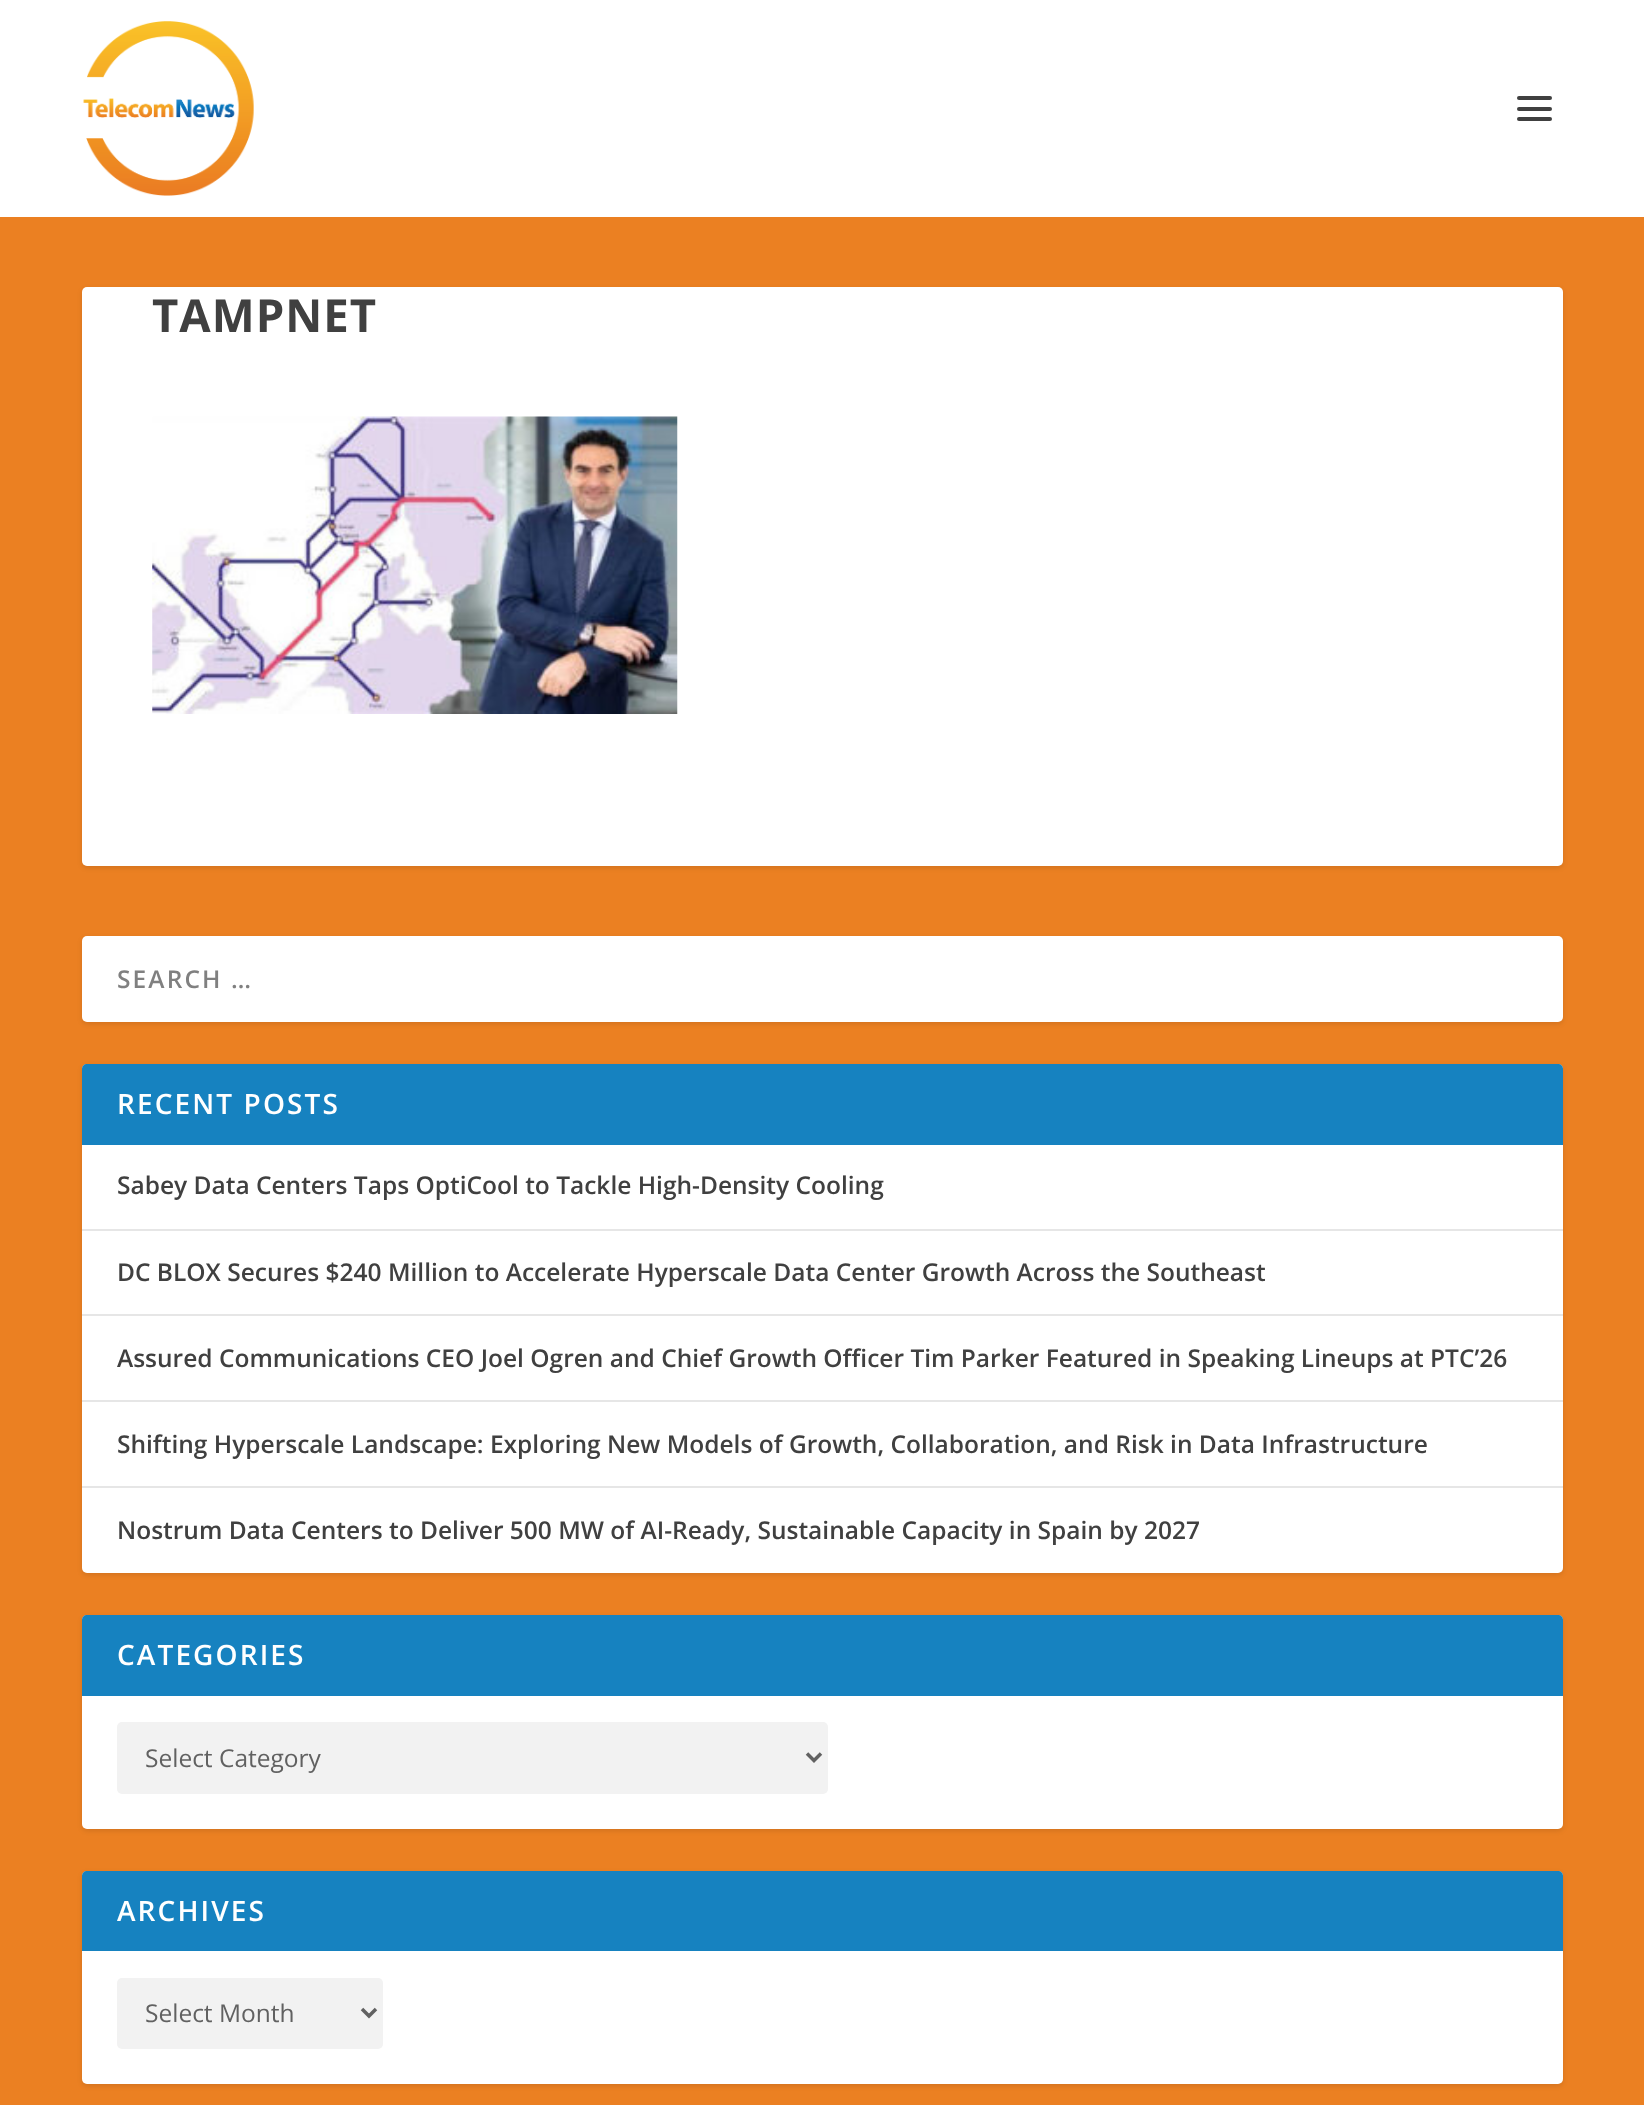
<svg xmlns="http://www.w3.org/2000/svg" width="1644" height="2105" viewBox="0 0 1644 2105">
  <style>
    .t1 { font: bold 45.5px Open Sans; letter-spacing: 1px; fill: #404040; }
    .t2 { font: 600 24.5px Open Sans; letter-spacing: 2.1px; fill: #808080; }
    .t3 { font: 600 28px Open Sans; letter-spacing: 2.1px; fill: #fff; }
    .t4 { font: 600 24.5px Open Sans; fill: #404040; }
    .t5 { font: 24.5px Open Sans; fill: #616161; }
  </style>
  <rect width="100%" height="100%" fill="#eb8022"/>
  <rect x="0" y="0" width="1644" height="217" fill="#fff"/>
  <image x="83" y="21" width="171" height="175" href="images/1.png"/>
  <rect x="1517" y="96" width="35" height="4" rx="2" fill="#404040"/>
  <rect x="1517" y="107" width="35" height="4" rx="2" fill="#404040"/>
  <rect x="1517" y="117" width="35" height="4" rx="2" fill="#404040"/>
  <rect x="82" y="289" width="1481" height="579" rx="5" fill="#0000001a" filter="blur(2.5px)"/>
  <rect x="82" y="287" width="1481" height="579" rx="5" fill="#fff"/>
  <text x="152" y="332" class="t1">TAMPNET</text>
  <image x="152" y="416" width="526" height="298" href="images/2.png"/>
  <rect x="82" y="938" width="1481" height="86" rx="5" fill="#0000001a" filter="blur(2.5px)"/>
  <rect x="82" y="936" width="1481" height="86" rx="5" fill="#fff"/>
  <text x="117" y="988" class="t2">SEARCH …</text>
  <rect x="82" y="1066" width="1481" height="509" rx="5" fill="#0000001a" filter="blur(2.5px)"/>
  <rect x="82" y="1064" width="1481" height="509" rx="5" fill="#fff"/>
  <path d="M87 1064H1558C1561 1064 1563 1066 1563 1069V1145H82V1069C82 1066 84 1064 87 1064Z" fill="#1682c0"/>
  <text x="117" y="1114" class="t3">RECENT POSTS</text>
  <rect x="82" y="1229" width="1481" height="2" fill="#e6e6e6"/>
  <text x="117" y="1194" class="t4">Sabey Data Centers Taps OptiCool to Tackle High-Density Cooling</text>
  <rect x="82" y="1314" width="1481" height="2" fill="#e6e6e6"/>
  <text x="117" y="1281" class="t4">DC BLOX Secures $240 Million to Accelerate Hyperscale Data Center Growth Across the Southeast</text>
  <rect x="82" y="1400" width="1481" height="2" fill="#e6e6e6"/>
  <text x="117" y="1367" class="t4">Assured Communications CEO Joel Ogren and Chief Growth Officer Tim Parker Featured in Speaking Lineups at PTC’26</text>
  <rect x="82" y="1486" width="1481" height="2" fill="#e6e6e6"/>
  <text x="117" y="1453" class="t4">Shifting Hyperscale Landscape: Exploring New Models of Growth, Collaboration, and Risk in Data Infrastructure</text>
  <text x="117" y="1539" class="t4">Nostrum Data Centers to Deliver 500 MW of AI-Ready, Sustainable Capacity in Spain by 2027</text>
  <rect x="82" y="1617" width="1481" height="214" rx="5" fill="#0000001a" filter="blur(2.5px)"/>
  <rect x="82" y="1615" width="1481" height="214" rx="5" fill="#fff"/>
  <path d="M87 1615H1558C1561 1615 1563 1617 1563 1620V1696H82V1620C82 1617 84 1615 87 1615Z" fill="#1682c0"/>
  <text x="117" y="1665" class="t3">CATEGORIES</text>
  <rect x="117" y="1722" width="711" height="72" rx="5" fill="#f2f2f2"/>
  <path d="M807 1753.5L814 1760.5L821 1753.5" fill="none" stroke="#616161" stroke-width="3.5"/>
  <text x="145" y="1767" class="t5">Select Category</text>
  <rect x="82" y="1873" width="1481" height="213" rx="5" fill="#0000001a" filter="blur(2.5px)"/>
  <rect x="82" y="1871" width="1481" height="213" rx="5" fill="#fff"/>
  <path d="M87 1871H1558C1561 1871 1563 1873 1563 1876V1951H82V1876C82 1873 84 1871 87 1871Z" fill="#1682c0"/>
  <text x="117" y="1921" class="t3">ARCHIVES</text>
  <rect x="117" y="1978" width="266" height="71" rx="5" fill="#f2f2f2"/>
  <path d="M362 2009L369 2016L376 2009" fill="none" stroke="#616161" stroke-width="3.5"/>
  <text x="145" y="2022" class="t5">Select Month</text>
</svg>
